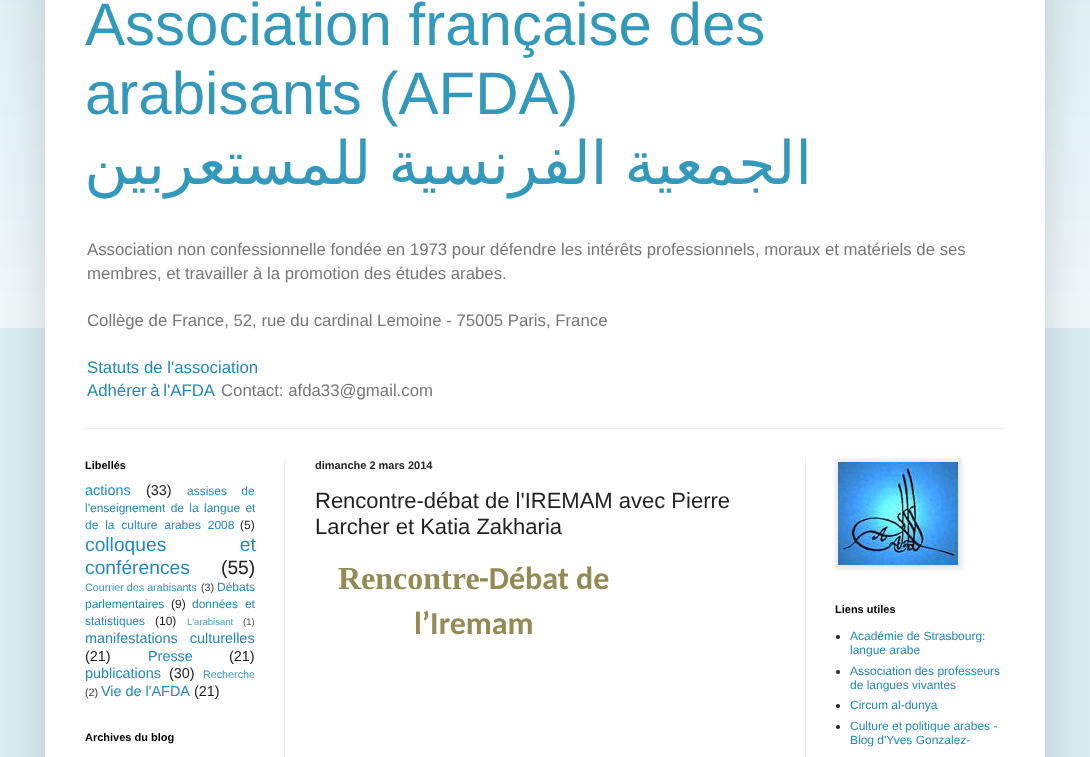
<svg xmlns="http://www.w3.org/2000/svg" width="1090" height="757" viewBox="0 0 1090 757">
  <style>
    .t1 { font: 60px Liberation Sans; fill: #39b; }
    .t2 { font: 60px DejaVu Sans; direction: rtl; fill: #39b; }
    .t3 { font: 16.8px Liberation Sans; fill: #777; }
    .t4 { font: 16.8px Liberation Sans; fill: #28b; }
    .t5 { font: bold 11px Liberation Sans; fill: #000; }
    .t6 { font: 14.4px Liberation Sans; fill: #28b; }
    .t7 { font: 14.4px Liberation Sans; fill: #222; }
    .t8 { font: 12px Liberation Sans; fill: #28b; }
    .t9 { font: 12px Liberation Sans; fill: #222; }
    .t10 { font: 19.25px Liberation Sans; fill: #28b; }
    .t11 { font: 19.25px Liberation Sans; fill: #222; }
    .t12 { font: 10.75px Liberation Sans; fill: #3894c2; }
    .t13 { font: 10.75px Liberation Sans; fill: #383838; }
    .t14 { font: 9.5px Liberation Sans; fill: #4ea0c9; }
    .t15 { font: 9.5px Liberation Sans; fill: #4e4e4e; }
    .t16 { font: bold 11px Liberation Sans; fill: #222; }
    .t17 { font: 22px Liberation Sans; fill: #222; }
    .t18 { font: bold 32px Liberation Serif; fill: #948a54; }
    .t19 { font: bold 32px Carlito; fill: #948a54; }
  </style>
  <rect width="100%" height="100%" fill="#d9ecf2"/>
  <image x="0" y="0" width="1090" height="328" href="images/1.png"/>
  <rect x="45" y="-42" width="1000" height="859" fill="#00000026" filter="blur(20px)"/>
  <rect x="45" y="0" width="1000" height="757" fill="#fff"/>
  <text x="85" y="45" class="t1">Association française des</text>
  <text x="85" y="114" class="t1">arabisants (AFDA)</text>
  <text x="812" y="184" word-spacing="-2" class="t2">الجمعية الفرنسية للمستعربين</text>
  <text x="87" y="255" class="t3">Association non confessionnelle fondée en 1973 pour défendre les intérêts professionnels, moraux et matériels de ses</text>
  <text x="87" y="279" class="t3">membres, et travailler à la promotion des études arabes.</text>
  <text x="87" y="326" class="t3">Collège de France, 52, rue du cardinal Lemoine - 75005 Paris, France</text>
  <text x="87" y="373" class="t4">Statuts de l'association</text>
  <text x="87" y="396" word-spacing="-1" class="t4">Adhérer à l'AFDA</text>
  <text x="221" y="396" class="t3">Contact: afda33@gmail.com</text>
  <rect x="85" y="428" width="920" height="1" fill="#eee"/>
  <rect x="284" y="459" width="1" height="298" fill="#eee"/>
  <rect x="805" y="459" width="1" height="298" fill="#eee"/>
  <text x="85" y="469" class="t5">Libellés</text>
  <text x="85" y="495" class="t6">actions</text>
  <text x="146" y="495" class="t7">(33)</text>
  <text x="187" y="495" word-spacing="11" class="t8">assises de</text>
  <text x="85" y="512" word-spacing="2" class="t8">l'enseignement de la langue et</text>
  <text x="85" y="529" word-spacing="3.5" class="t8">de la culture arabes 2008</text>
  <text x="240" y="529" class="t9">(5)</text>
  <text x="85" y="551" word-spacing="68" class="t10">colloques et</text>
  <text x="85" y="574" class="t10">conférences</text>
  <text x="221" y="574" class="t11">(55)</text>
  <text x="85" y="591" class="t12">Courrier des arabisants</text>
  <text x="201" y="591" class="t13">(3)</text>
  <text x="217" y="591" class="t8">Débats</text>
  <text x="85" y="608" class="t8">parlementaires</text>
  <text x="171" y="608" class="t9">(9)</text>
  <text x="192" y="608" word-spacing="3.5" class="t8">données et</text>
  <text x="85" y="625" class="t8">statistiques</text>
  <text x="155" y="625" class="t9">(10)</text>
  <text x="187" y="625" class="t14">L'arabisant</text>
  <text x="243" y="625" class="t15">(1)</text>
  <text x="85" y="643" word-spacing="8" class="t6">manifestations culturelles</text>
  <text x="85" y="661" class="t7">(21)</text>
  <text x="148" y="661" class="t6">Presse</text>
  <text x="229" y="661" class="t7">(21)</text>
  <text x="85" y="678" class="t6">publications</text>
  <text x="169" y="678" class="t7">(30)</text>
  <text x="203" y="678" class="t12">Recherche</text>
  <text x="85" y="696" class="t13">(2)</text>
  <text x="101" y="696" class="t6">Vie de l'AFDA</text>
  <text x="194" y="696" class="t7">(21)</text>
  <text x="85" y="741" class="t5">Archives du blog</text>
  <text x="315" y="469" class="t16">dimanche 2 mars 2014</text>
  <text x="315" y="508" class="t17">Rencontre-débat de l'IREMAM avec Pierre</text>
  <text x="315" y="534" class="t17">Larcher et Katia Zakharia</text>
  <text x="338" y="589" class="t18">Rencontre</text>
  <text x="479" y="589" class="t19">-Débat de</text>
  <text x="414" y="634" class="t19">l’Iremam</text>
  <rect x="836" y="460" width="126" height="109" fill="#0000001a" filter="blur(2.5px)"/>
  <rect x="835.5" y="459.5" width="125" height="108" fill="none" stroke="#eee"/>
  <image x="838" y="462" width="120" height="103" href="images/2.png"/>
  <text x="835" y="613" class="t5">Liens utiles</text>
  <circle cx="838" cy="637" r="2" fill="#222"/>
  <text x="850" y="640" class="t8">Académie de Strasbourg:</text>
  <text x="850" y="654" class="t8">langue arabe</text>
  <circle cx="838" cy="672" r="2" fill="#222"/>
  <text x="850" y="675" class="t8">Association des professeurs</text>
  <text x="850" y="689" class="t8">de langues vivantes</text>
  <circle cx="838" cy="706" r="2" fill="#222"/>
  <text x="850" y="709" class="t8">Circum al-dunya</text>
  <circle cx="838" cy="727" r="2" fill="#222"/>
  <text x="850" y="730" class="t8">Culture et politique arabes -</text>
  <text x="850" y="744" class="t8">Blog d'Yves Gonzalez-</text>
</svg>
